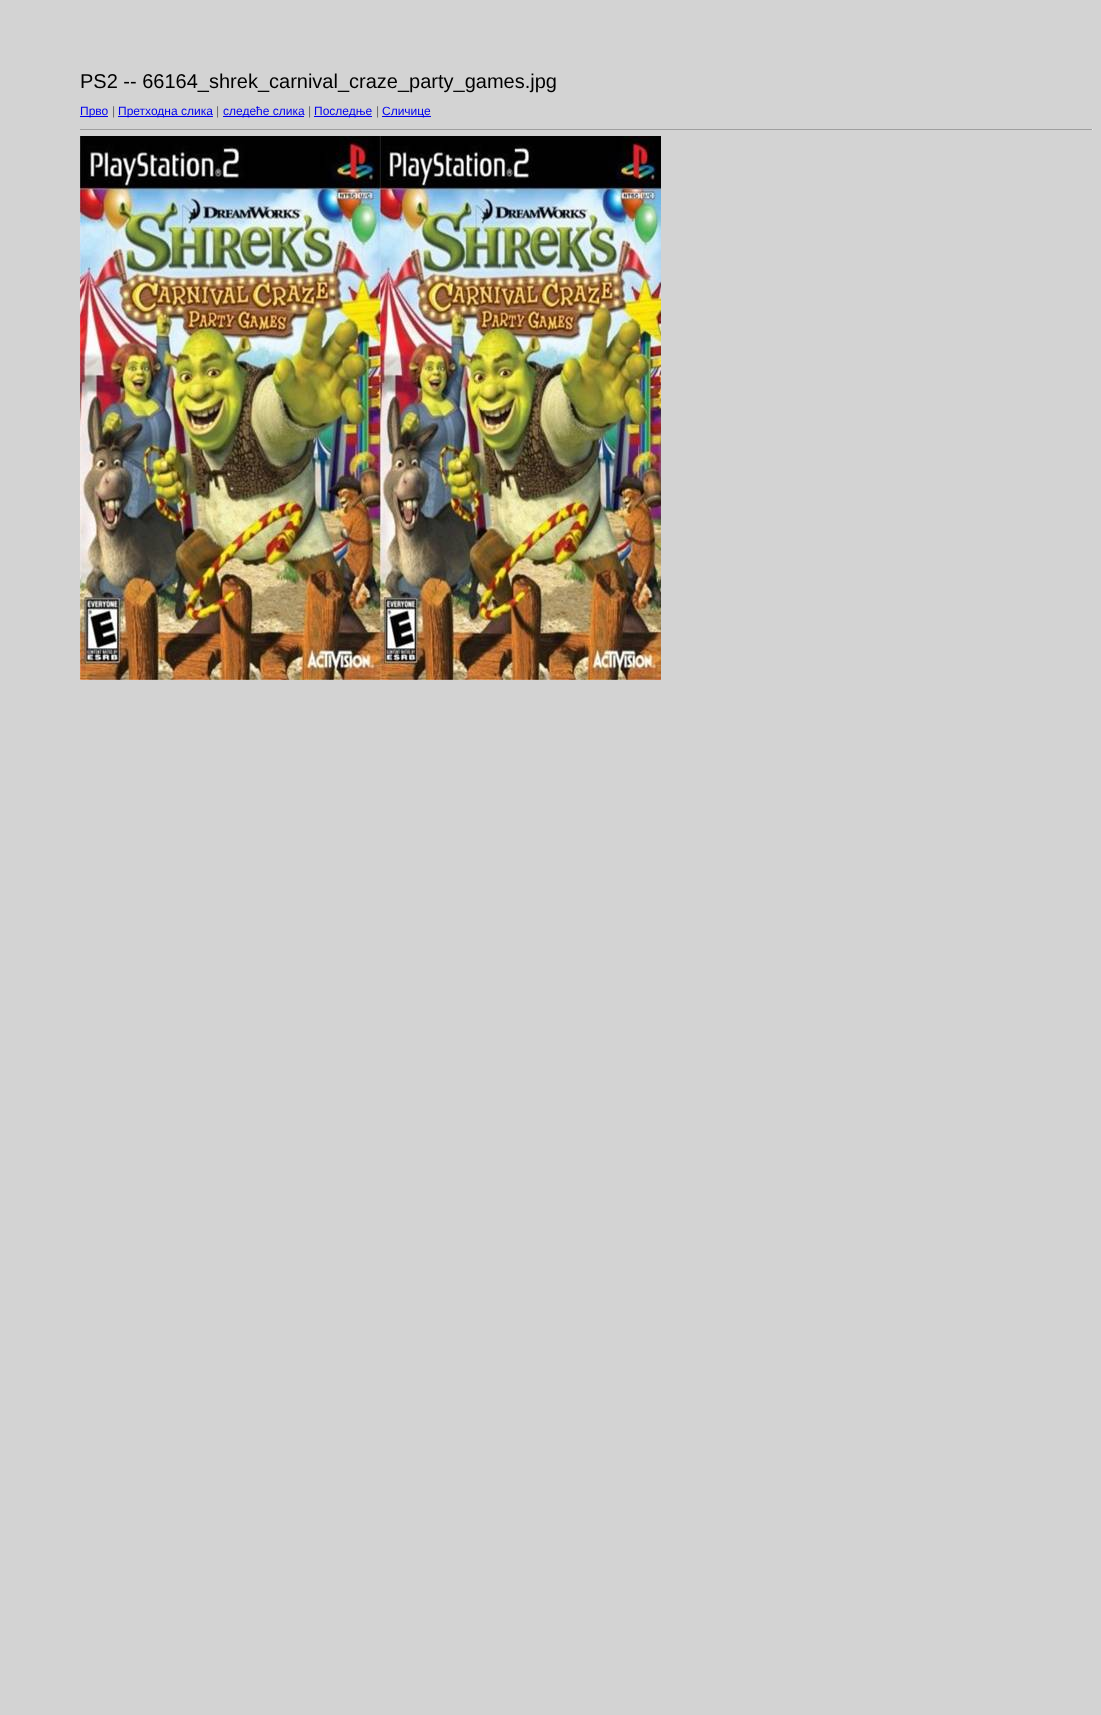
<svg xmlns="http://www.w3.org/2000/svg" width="1101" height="1715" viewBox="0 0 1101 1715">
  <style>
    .t1 { font: 20px Liberation Sans; fill: #000; }
    .t2 { font: 12px Liberation Sans; fill: #00e; }
    .t3 { font: 12px Liberation Sans; fill: #666; }
  </style>
  <rect width="100%" height="100%" fill="#d3d3d3"/>
  <text x="80" y="88" class="t1">PS2 -- 66164_shrek_carnival_craze_party_games.jpg</text>
  <rect x="80" y="116" width="28" height="1" fill="#00e"/>
  <text x="80" y="115" class="t2">Прво</text>
  <text x="112" y="115" class="t3">|</text>
  <rect x="118" y="116" width="95" height="1" fill="#00e"/>
  <text x="118" y="115" class="t2">Претходна слика</text>
  <text x="216" y="115" class="t3">|</text>
  <rect x="223" y="116" width="81" height="1" fill="#00e"/>
  <text x="223" y="115" class="t2">следеће слика</text>
  <text x="308" y="115" class="t3">|</text>
  <rect x="314" y="116" width="58" height="1" fill="#00e"/>
  <text x="314" y="115" class="t2">Последње</text>
  <text x="376" y="115" class="t3">|</text>
  <rect x="382" y="116" width="49" height="1" fill="#00e"/>
  <text x="382" y="115" class="t2">Сличице</text>
  <rect x="80" y="129" width="1013" height="1" fill="#9f9f9f"/>
  <rect x="1092" y="129" width="1" height="1" fill="#eee"/>
  <image x="80" y="136" width="581" height="544" href="images/1.png"/>
</svg>
